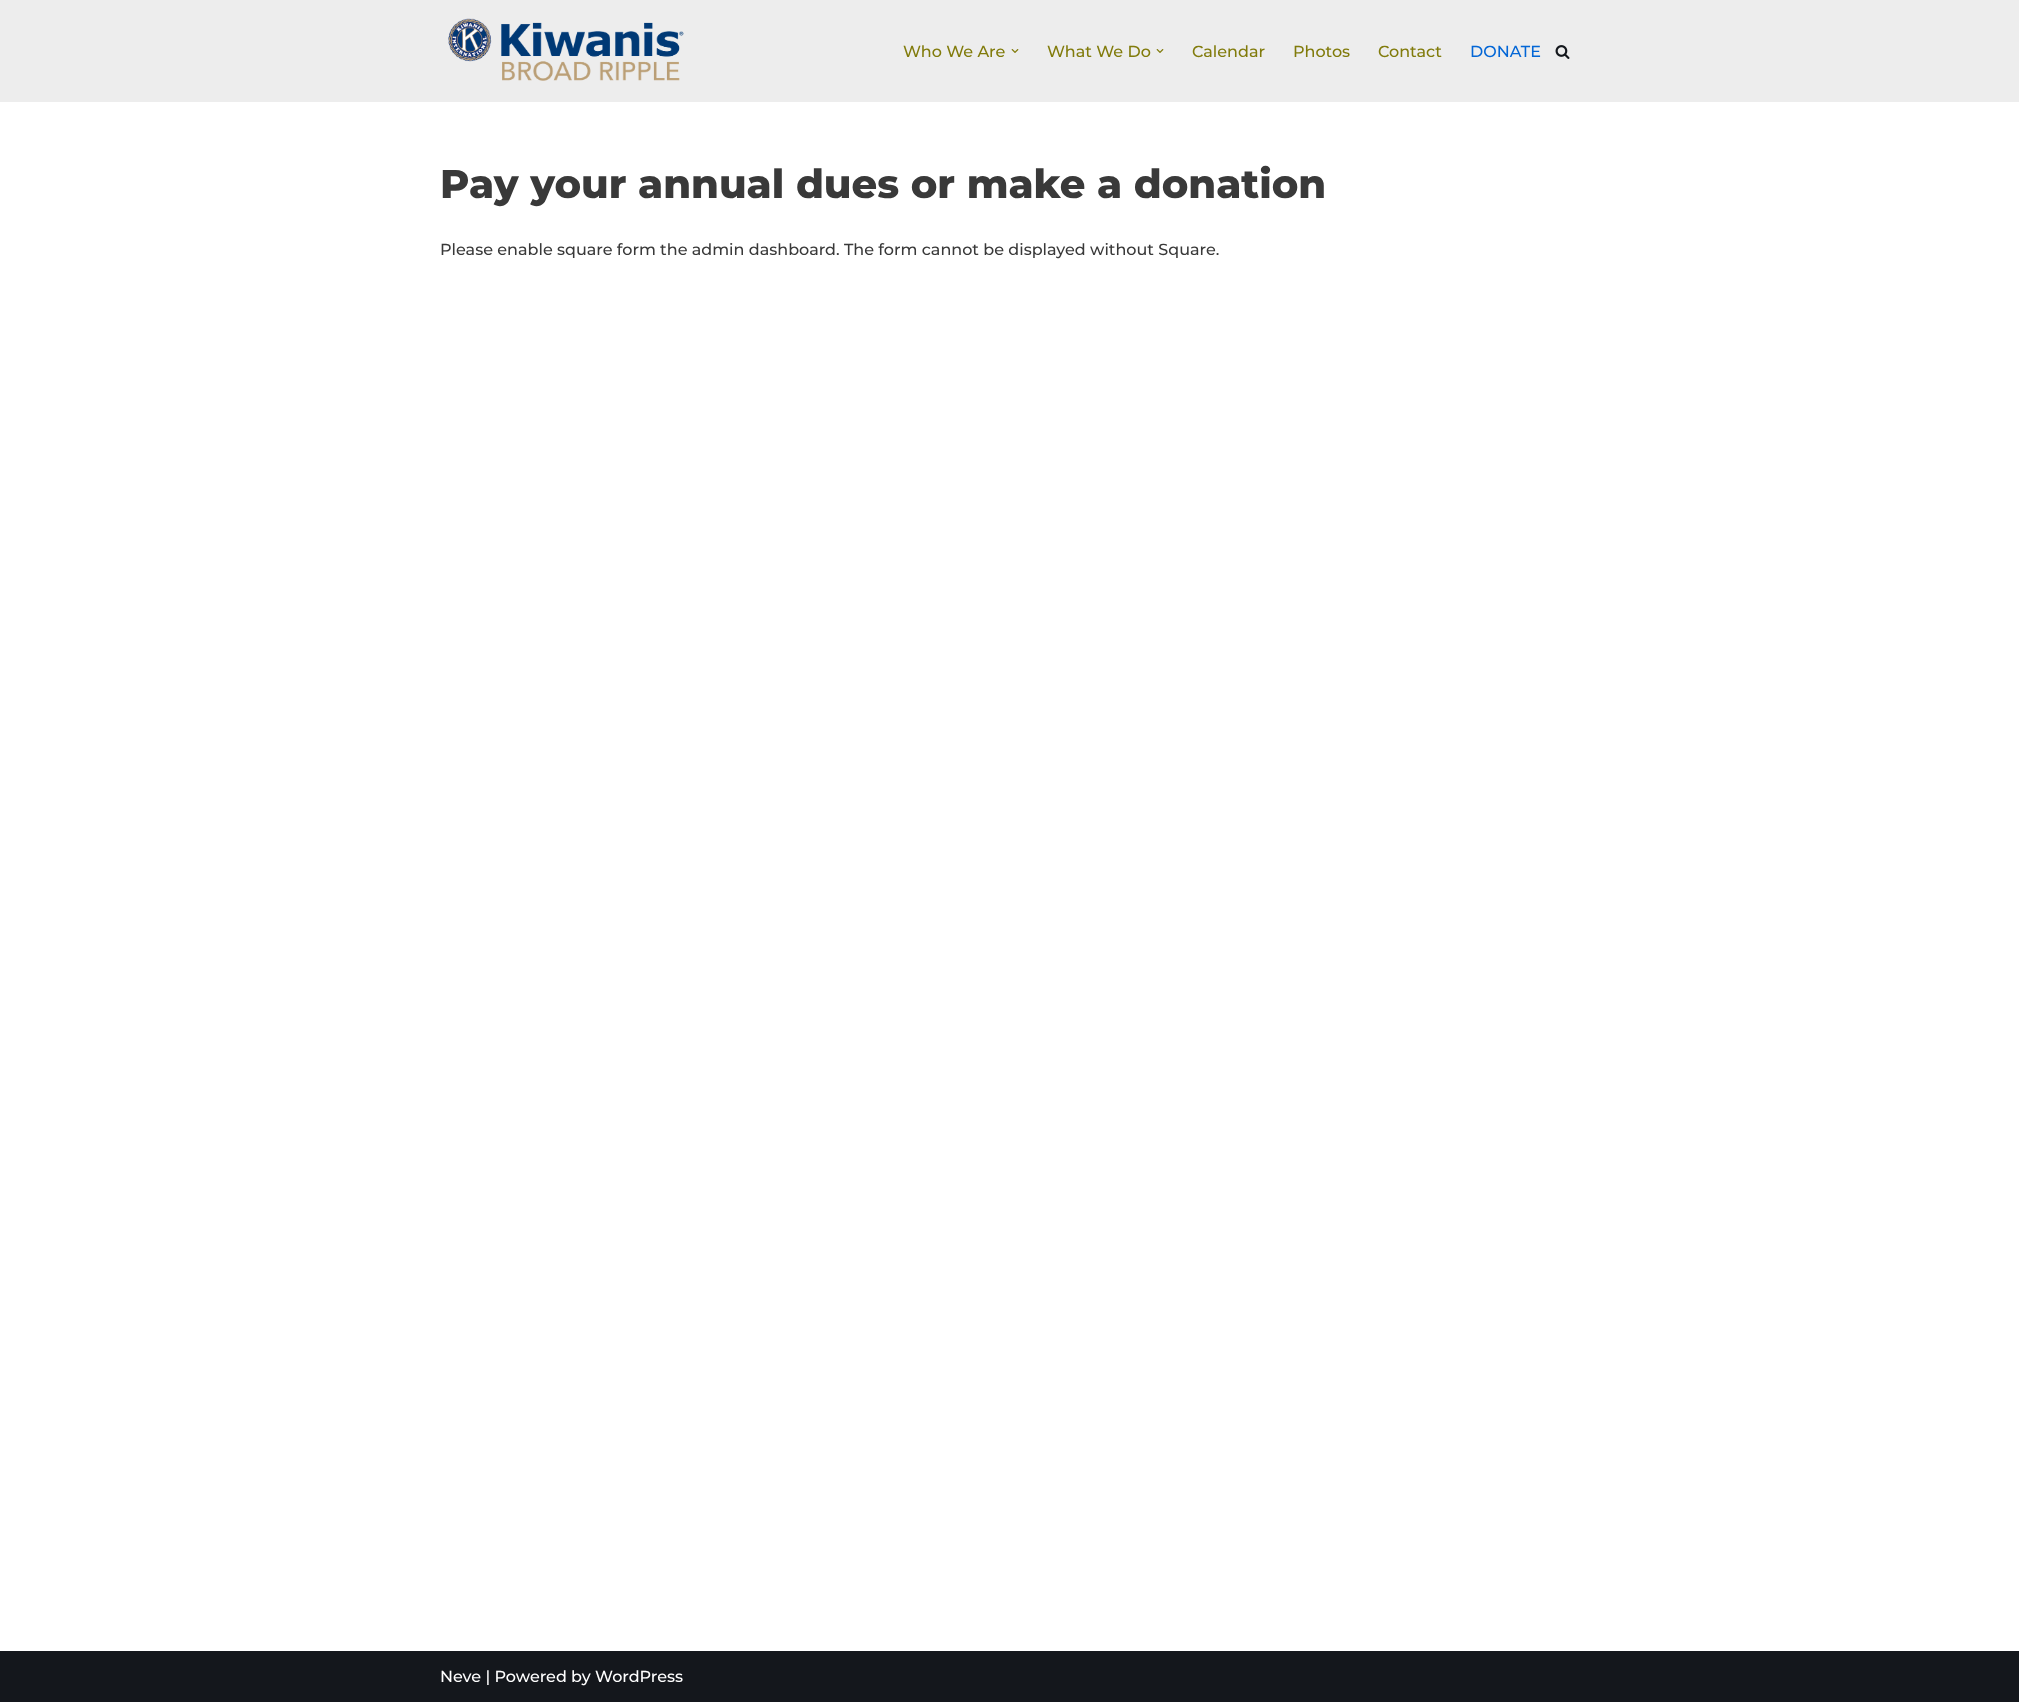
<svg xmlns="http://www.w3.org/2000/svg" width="2019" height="1702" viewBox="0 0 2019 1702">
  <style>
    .t1 { font: 500 16px Montserrat; fill: #817b0b; }
    .t2 { font: 500 16px Montserrat; fill: #0366d6; }
    .t3 { font: 800 40px Montserrat; fill: #393939; }
    .t4 { font: 500 16px Montserrat; fill: #393939; }
    .t5 { font: 500 16px Montserrat; fill: #fff; }
  </style>
  <rect width="100%" height="100%" fill="#fff"/>
  <rect x="0" y="0" width="2019" height="102" fill="#ededed"/>
  <image x="448" y="18" width="236" height="63" href="images/1.png"/>
  <text x="903" y="57" class="t1">Who We Are</text>
  <image x="1011" y="49" width="8" height="4" href="images/2.png"/>
  <text x="1047" y="57" class="t1">What We Do</text>
  <image x="1156" y="49" width="8" height="4" href="images/2.png"/>
  <text x="1192" y="57" class="t1">Calendar</text>
  <text x="1293" y="57" class="t1">Photos</text>
  <text x="1378" y="57" class="t1">Contact</text>
  <text x="1470" y="57" class="t2">DONATE</text>
  <image x="1555" y="45" width="15" height="14" href="images/3.png"/>
  <text x="440" y="198" class="t3">Pay your annual dues or make a donation</text>
  <text x="440" y="255" class="t4">Please enable square form the admin dashboard. The form cannot be displayed without Square.</text>
  <rect x="0" y="1651" width="2019" height="51" fill="#14171c"/>
  <text x="440" y="1682" class="t5">Neve | Powered by WordPress</text>
</svg>
